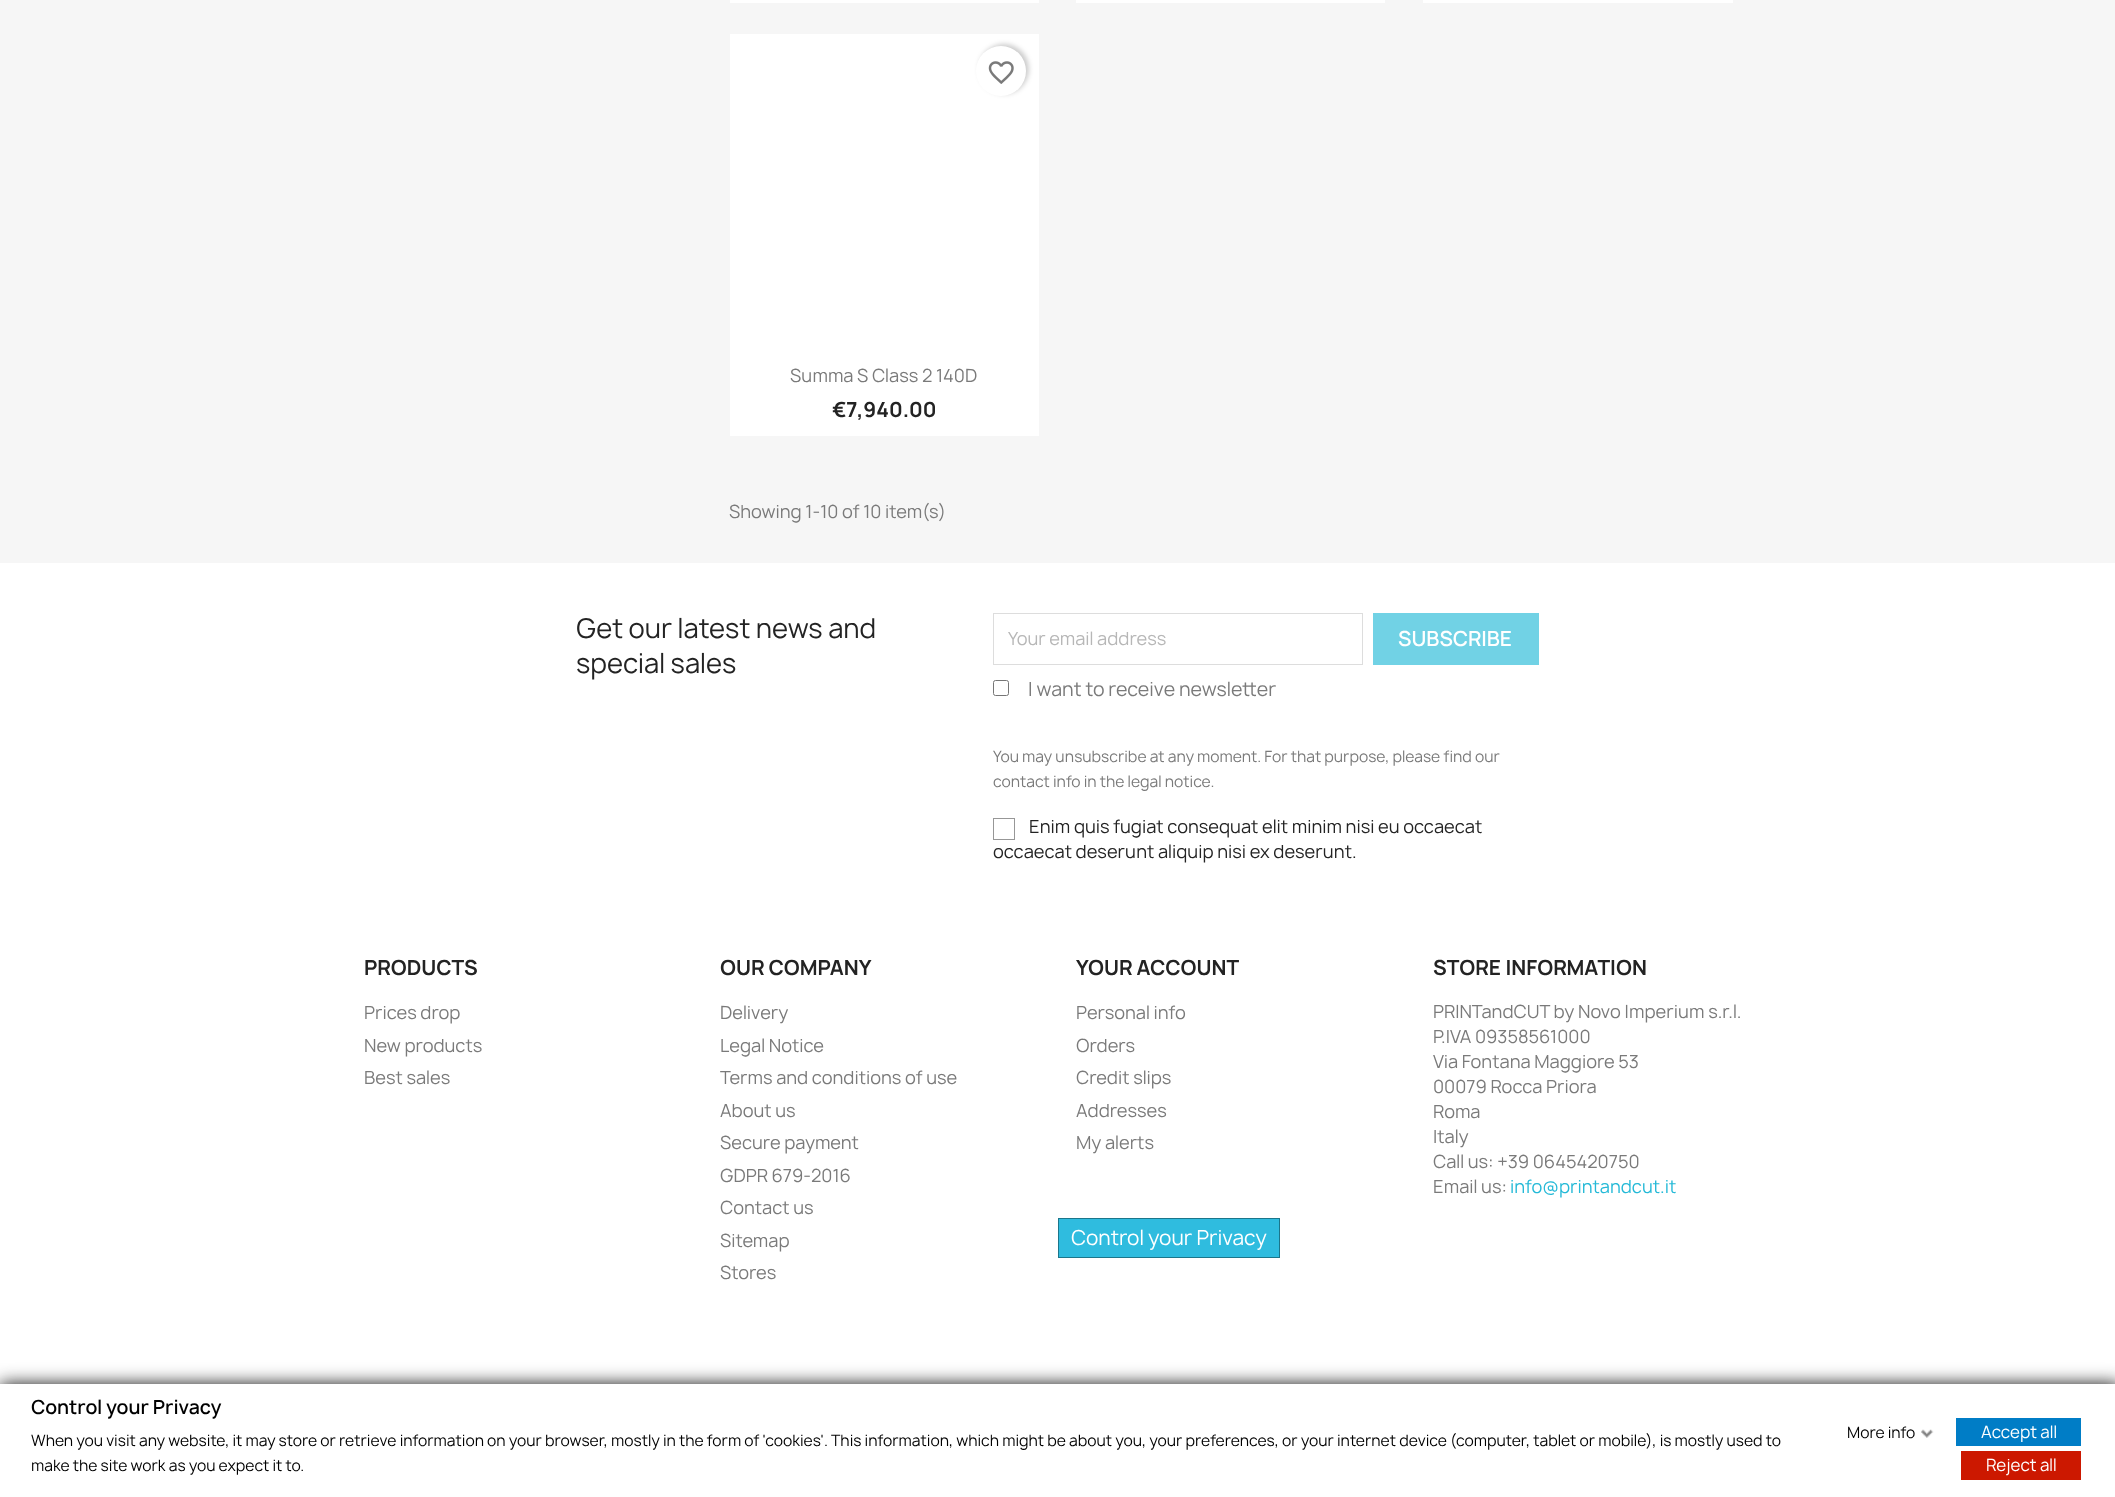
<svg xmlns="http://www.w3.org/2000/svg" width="2115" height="1497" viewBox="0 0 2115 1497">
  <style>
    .t1 { font: 17.5px Manrope; fill: #7a7a7a; }
    .t2 { font: bold 20px Manrope; fill: #232323; }
    .t3 { font: 26.25px Manrope; fill: #232323; }
    .t4 { font: 17.5px Manrope; fill: #b7b7b7; }
    .t5 { font: 600 20px Manrope; fill: #fff; }
    .t6 { font: 18.75px Manrope; fill: #7a7a7a; }
    .t7 { font: 15px Manrope; fill: #7a7a7a; }
    .t8 { font: 17.5px Manrope; fill: #232323; }
    .t9 { font: 17.5px Manrope; fill: #24b9d7; }
    .t10 { font: 20px Manrope; fill: #fff; }
    .t11 { font: 600 18.75px Manrope; fill: #000; }
    .t12 { font: 15px Manrope; fill: #000; }
    .t13 { font: 16.25px Manrope; fill: #fff; }
  </style>
  <rect width="100%" height="100%" fill="#fff"/>
  <rect x="0" y="0" width="2115" height="563" fill="#f6f6f6"/>
  <rect x="730" y="0" width="309" height="3" fill="#fff"/>
  <rect x="1076" y="0" width="309" height="3" fill="#fff"/>
  <rect x="1423" y="0" width="310" height="3" fill="#fff"/>
  <rect x="730" y="34" width="309" height="402" fill="#fff"/>
  <rect x="979" y="44" width="50" height="50" rx="25" fill="#00000033" filter="blur(2.5px)"/>
  <circle cx="1001" cy="71" r="25" fill="#fff"/>
  <image x="988" y="61" width="26" height="23" href="images/1.png"/>
  <text x="790" y="382" class="t1">Summa S Class 2 140D</text>
  <text x="832" y="417" class="t2">€7,940.00</text>
  <text x="729" y="518" class="t1">Showing 1-10 of 10 item(s)</text>
  <text x="576" y="638" class="t3">Get our latest news and</text>
  <text x="576" y="673" class="t3">special sales</text>
  <rect x="993.5" y="613.5" width="369" height="51" fill="none" stroke="#ddd"/>
  <text x="1008" y="645" class="t4">Your email address</text>
  <rect x="1373" y="613" width="166" height="52" fill="#71d2e5"/>
  <text x="1398" y="646" class="t5">SUBSCRIBE</text>
  <rect x="993.5" y="680.5" width="15" height="15" rx="2" fill="none" stroke="#767676"/>
  <text x="1028" y="696" class="t6">I want to receive newsletter</text>
  <text x="993" y="762" class="t7">You may unsubscribe at any moment. For that purpose, please find our</text>
  <text x="993" y="787" class="t7">contact info in the legal notice.</text>
  <rect x="993.5" y="818.5" width="21" height="21" fill="none" stroke="#979797"/>
  <text x="1029" y="833" class="t8">Enim quis fugiat consequat elit minim nisi eu occaecat</text>
  <text x="993" y="858" class="t8">occaecat deserunt aliquip nisi ex deserunt.</text>
  <text x="364" y="975" class="t2">PRODUCTS</text>
  <text x="364" y="1019" class="t1">Prices drop</text>
  <text x="364" y="1052" class="t1">New products</text>
  <text x="364" y="1084" class="t1">Best sales</text>
  <text x="720" y="975" class="t2">OUR COMPANY</text>
  <text x="720" y="1019" class="t1">Delivery</text>
  <text x="720" y="1052" class="t1">Legal Notice</text>
  <text x="720" y="1084" class="t1">Terms and conditions of use</text>
  <text x="720" y="1117" class="t1">About us</text>
  <text x="720" y="1149" class="t1">Secure payment</text>
  <text x="720" y="1182" class="t1">GDPR 679-2016</text>
  <text x="720" y="1214" class="t1">Contact us</text>
  <text x="720" y="1247" class="t1">Sitemap</text>
  <text x="720" y="1279" class="t1">Stores</text>
  <text x="1076" y="975" class="t2">YOUR ACCOUNT</text>
  <text x="1076" y="1019" class="t1">Personal info</text>
  <text x="1076" y="1052" class="t1">Orders</text>
  <text x="1076" y="1084" class="t1">Credit slips</text>
  <text x="1076" y="1117" class="t1">Addresses</text>
  <text x="1076" y="1149" class="t1">My alerts</text>
  <text x="1433" y="975" class="t2">STORE INFORMATION</text>
  <text x="1433" y="1018" class="t1">PRINTandCUT by Novo Imperium s.r.l.</text>
  <text x="1433" y="1043" class="t1">P.IVA 09358561000</text>
  <text x="1433" y="1068" class="t1">Via Fontana Maggiore 53</text>
  <text x="1433" y="1093" class="t1">00079 Rocca Priora</text>
  <text x="1433" y="1118" class="t1">Roma</text>
  <text x="1433" y="1143" class="t1">Italy</text>
  <text x="1433" y="1168" class="t1">Call us: +39 0645420750</text>
  <text x="1433" y="1193" class="t1">Email us:</text>
  <text x="1510" y="1193" class="t9">info@printandcut.it</text>
  <rect x="1058.5" y="1218.5" width="221" height="39" fill="#2fbcdf" stroke="#1b768b"/>
  <text x="1071" y="1245" class="t10">Control your Privacy</text>
  <rect x="0" y="1384" width="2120" height="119" fill="#121212" filter="blur(9px)"/>
  <rect x="0" y="1384" width="2115" height="113" fill="#fff"/>
  <text x="31" y="1414" class="t11">Control your Privacy</text>
  <text x="31" y="1446" class="t12">When you visit any website, it may store or retrieve information on your browser, mostly in the form of 'cookies'. This information, which might be about you, your preferences, or your internet device (computer, tablet or mobile), is mostly used to</text>
  <text x="31" y="1471" class="t12">make the site work as you expect it to.</text>
  <text x="1847" y="1438" class="t12">More info</text>
  <image x="1921" y="1429" width="13" height="9" href="images/2.png"/>
  <rect x="1956" y="1418" width="125" height="28" fill="#007dc6"/>
  <text x="1981" y="1438" class="t13">Accept all</text>
  <rect x="1961" y="1451" width="120" height="29" fill="#cc1800"/>
  <text x="1986" y="1471" class="t13">Reject all</text>
</svg>
